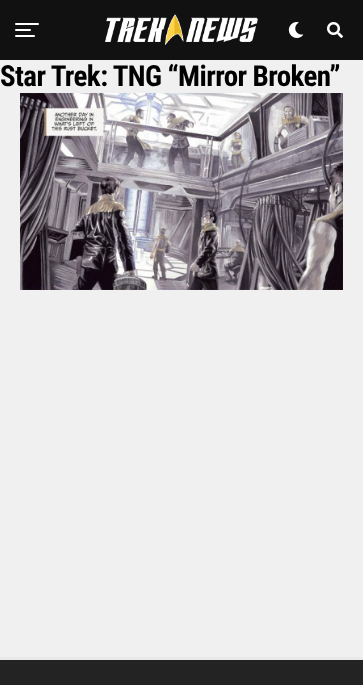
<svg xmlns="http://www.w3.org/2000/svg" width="363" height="685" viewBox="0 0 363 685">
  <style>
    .t1 { font: bold 29px Roboto Condensed; letter-spacing: -0.6px; fill: #000; }
  </style>
  <rect width="100%" height="100%" fill="#f0f0f0"/>
  <rect x="0" y="0" width="363" height="60" fill="#111"/>
  <rect x="15" y="23" width="24" height="2" rx="1" fill="#fff"/>
  <rect x="15" y="29" width="16" height="2" rx="1" fill="#fff"/>
  <rect x="15" y="35" width="20" height="2" rx="1" fill="#fff"/>
  <image x="105" y="14" width="153" height="31" href="images/1.png"/>
  <image x="288" y="22" width="16" height="16" href="images/2.png"/>
  <image x="327" y="22" width="16" height="16" href="images/3.png"/>
  <text x="0" y="86" class="t1">Star Trek: TNG “Mirror Broken”</text>
  <image x="20" y="93" width="323" height="197" href="images/4.png"/>
  <rect x="0" y="660" width="363" height="25" fill="#232323"/>
  <rect x="0" y="657" width="363" height="3" fill="#e9e9e9"/>
</svg>
